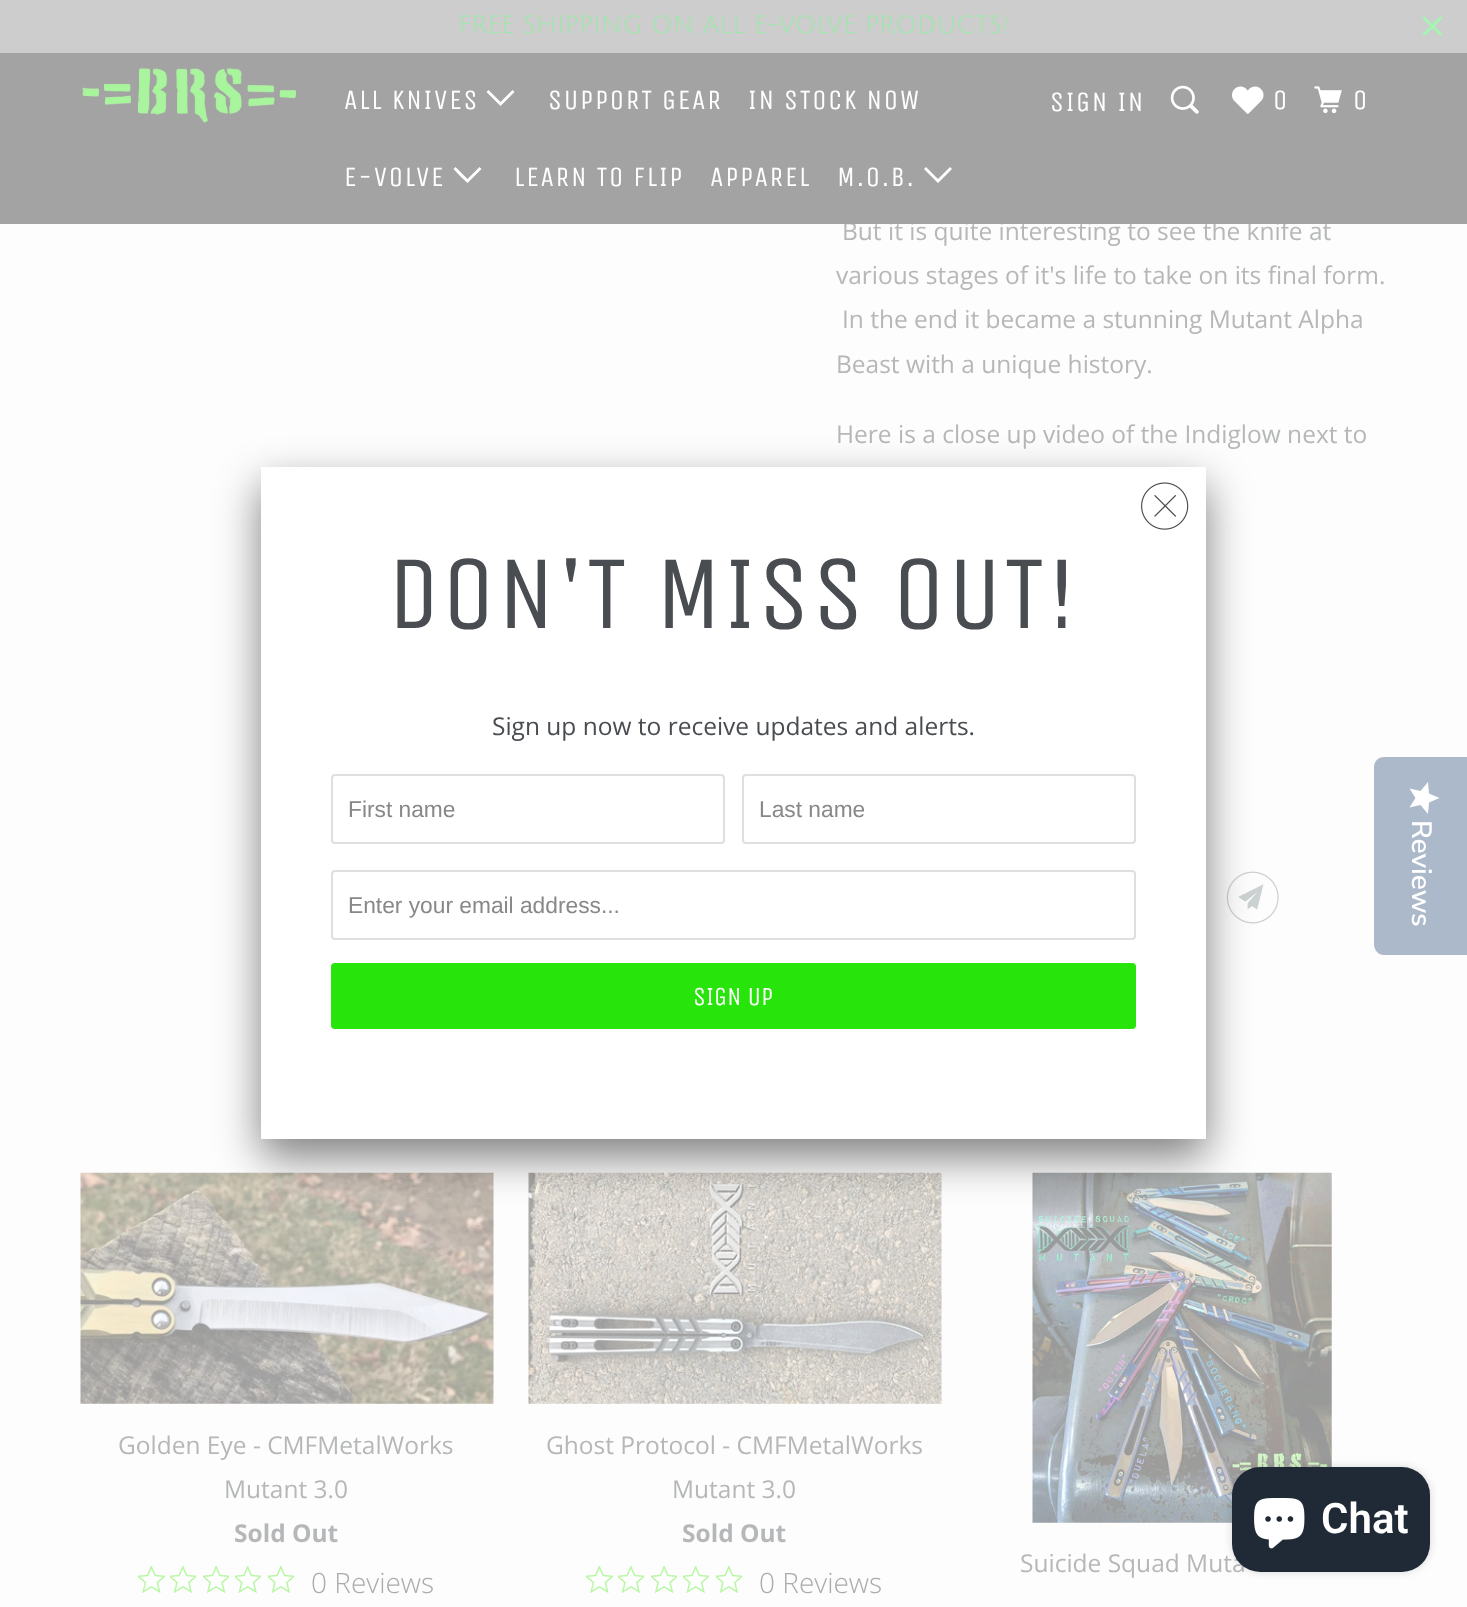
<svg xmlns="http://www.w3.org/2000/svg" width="1467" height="1607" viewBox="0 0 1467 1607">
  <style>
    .t1 { font: 24.5px Open Sans; fill: #b6b7b9; }
    .t2 { font: 24.5px Julius Sans One; fill: #9be9a9; }
    .t3 { font: 28px Unica One; letter-spacing: 1.75px; fill: #fff; }
    .t4 { font: bold 24.5px Open Sans; fill: #b6b7b9; }
    .t5 { font: 300 28px Open Sans; fill: #ababab; }
    .t6 { font: 105px Unica One; letter-spacing: 1.75px; fill: #494c50; }
    .t7 { font: 24.5px Open Sans; fill: #494c50; }
    .t8 { font: 22.75px Liberation Sans; fill: #888; }
    .t9 { font: 26px Unica One; fill: #fff; }
    .t10 { font: 200 28px Nunito Sans; fill: #fff; }
    .t11 { font: 600 42px Roboto; fill: #fff; }
  </style>
  <defs>
    <linearGradient id="g1" gradientUnits="userSpaceOnUse" x1="1439" y1="782" x2="1439" y2="814"><stop offset="1" stop-color="#fff"/><stop offset="1" stop-color="#f7f7f7"/></linearGradient>
  </defs>
  <rect width="100%" height="100%" fill="#fdfdfd"/>
  <text x="842" y="240" class="t1">But it is quite interesting to see the knife at</text>
  <rect x="0" y="53" width="1467" height="171" fill="#a3a3a3"/>
  <rect x="0" y="0" width="1467" height="53" fill="#cdcdcd"/>
  <text x="458" y="33" class="t2">FREE SHIPPING ON ALL E-VOLVE PRODUCTS!</text>
  <image x="1422" y="16" width="20" height="20" href="images/1.png"/>
  <image x="82" y="68" width="215" height="55" href="images/2.png"/>
  <text x="344" y="109" class="t3">ALL KNIVES</text>
  <path d="M493.5 99L486.5 92L488.5 90L500.5 102L512.5 90L514.5 92L500.5 106Z" fill="#fff"/>
  <text x="548" y="109" class="t3">SUPPORT GEAR</text>
  <text x="748" y="109" class="t3">IN STOCK NOW</text>
  <text x="344" y="186" class="t3">E-VOLVE</text>
  <path d="M460 176L453.5 169L455.5 167L467.5 179L479.5 167L481.5 169L467.5 183Z" fill="#fff"/>
  <text x="514" y="186" class="t3">LEARN TO FLIP</text>
  <text x="710" y="186" class="t3">APPAREL</text>
  <text x="837" y="186" class="t3">M.O.B.</text>
  <path d="M931 176L924 169L926 167L938 179L950 167L952 169L938 183Z" fill="#fff"/>
  <text x="1050" y="111" class="t3">SIGN IN</text>
  <image x="1170" y="85" width="29" height="29" href="images/3.png"/>
  <image x="1232" y="86" width="32" height="28" href="images/4.png"/>
  <text x="1273" y="109" class="t3">0</text>
  <image x="1314" y="86" width="28" height="28" href="images/5.png"/>
  <text x="1353" y="109" class="t3">0</text>
  <text x="836" y="284" class="t1">various stages of it's life to take on its final form.</text>
  <text x="842" y="328" class="t1">In the end it became a stunning Mutant Alpha</text>
  <text x="836" y="373" class="t1">Beast with a unique history.</text>
  <text x="836" y="443" class="t1">Here is a close up video of the Indiglow next to</text>
  <image x="1226" y="871" width="53" height="53" href="images/6.png"/>
  <image x="80" y="1172" width="414" height="232" href="images/7.png"/>
  <text x="118" y="1454" class="t1">Golden Eye - CMFMetalWorks</text>
  <text x="224" y="1498" class="t1">Mutant 3.0</text>
  <text x="234" y="1542" class="t4">Sold Out</text>
  <image x="138" y="1566" width="27" height="27" href="images/8.png"/>
  <image x="170" y="1566" width="26" height="27" href="images/9.png"/>
  <image x="203" y="1566" width="26" height="27" href="images/10.png"/>
  <image x="235" y="1566" width="26" height="27" href="images/11.png"/>
  <image x="268" y="1566" width="26" height="27" href="images/9.png"/>
  <text x="311" y="1593" class="t5">0 Reviews</text>
  <image x="528" y="1172" width="414" height="232" href="images/12.png"/>
  <text x="546" y="1454" class="t1">Ghost Protocol - CMFMetalWorks</text>
  <text x="672" y="1498" class="t1">Mutant 3.0</text>
  <text x="682" y="1542" class="t4">Sold Out</text>
  <image x="586" y="1566" width="27" height="27" href="images/8.png"/>
  <image x="618" y="1566" width="26" height="27" href="images/9.png"/>
  <image x="651" y="1566" width="26" height="27" href="images/10.png"/>
  <image x="683" y="1566" width="26" height="27" href="images/11.png"/>
  <image x="716" y="1566" width="26" height="27" href="images/9.png"/>
  <text x="759" y="1593" class="t5">0 Reviews</text>
  <image x="1032" y="1172" width="300" height="351" href="images/13.png"/>
  <text x="1020" y="1572" class="t1">Suicide Squad Muta</text>
  <rect x="261" y="485" width="945" height="672" fill="#00000080" filter="blur(22px)"/>
  <rect x="261" y="467" width="945" height="672" fill="#fff"/>
  <image x="1141" y="482" width="48" height="48" href="images/14.png"/>
  <text x="387" y="628" class="t6">DON'T MISS OUT!</text>
  <text x="492" y="735" class="t7">Sign up now to receive updates and alerts.</text>
  <rect x="332" y="775" width="392" height="68" rx="3" fill="none" stroke="#dfdfdf" stroke-width="2"/>
  <text x="348" y="817" class="t8">First name</text>
  <rect x="743" y="775" width="392" height="68" rx="3" fill="none" stroke="#dfdfdf" stroke-width="2"/>
  <text x="759" y="817" class="t8">Last name</text>
  <rect x="332" y="871" width="803" height="68" rx="3" fill="none" stroke="#dfdfdf" stroke-width="2"/>
  <text x="348" y="913" class="t8">Enter your email address...</text>
  <rect x="331" y="963" width="805" height="66" rx="4" fill="#27e50a"/>
  <text x="693" y="1005" class="t9">SIGN UP</text>
  <path d="M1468 757V955H1384C1378 955 1374 950 1374 944V767C1374 762 1378 757 1384 757Z" fill="#abb9cb"/>
  <path d="M1415.5 798L1409.5 807.5L1420.5 805L1428 814L1429 802.5L1439.5 798L1429 793.5L1428 782L1420.5 791L1409.5 788.5Z" fill="url(#g1)"/>
  <text x="1412" y="820" transform="rotate(90 1412 820)" class="t10">Reviews</text>
  <rect x="1232" y="1467" width="198" height="105" rx="28" fill="#00000026" filter="blur(4.5px)"/>
  <rect x="1232" y="1467" width="198" height="105" rx="28" fill="#202a36"/>
  <image x="1254" y="1498" width="51" height="51" href="images/15.png"/>
  <text x="1321" y="1533" class="t11">Chat</text>
</svg>
